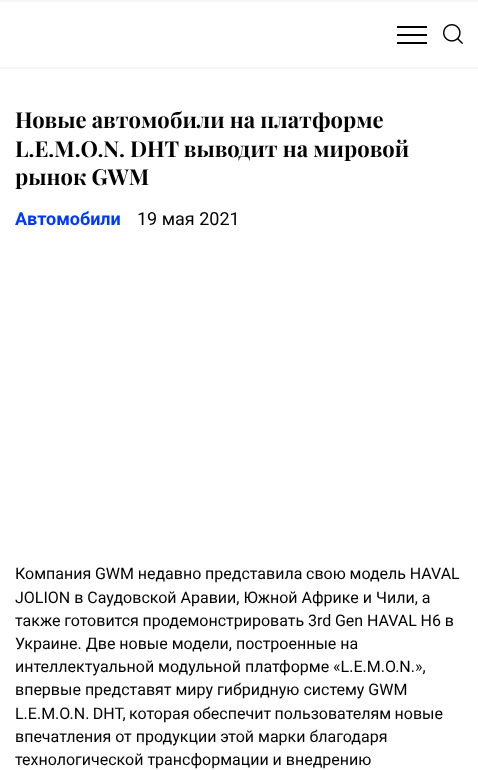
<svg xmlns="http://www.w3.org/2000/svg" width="478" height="770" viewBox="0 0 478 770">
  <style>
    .t1 { font: bold 22px Playfair Display; fill: #000; }
    .t2 { font: bold 18px Roboto; fill: #0038ff; }
    .t3 { font: 18px Roboto; fill: #000; }
    .t4 { font: 16px Roboto; fill: #000; }
  </style>
  <rect width="100%" height="100%" fill="#fff"/>
  <rect x="0" y="0" width="478" height="2" fill="#f6f6f6"/>
  <rect x="0" y="67" width="478" height="2" fill="#f6f6f6"/>
  <rect x="397" y="34" width="30" height="2" fill="#000"/>
  <rect x="397" y="26" width="30" height="2" fill="#000"/>
  <rect x="397" y="42" width="30" height="2" fill="#000"/>
  <image x="443" y="24" width="20" height="20" href="images/1.png"/>
  <text x="15" y="128" class="t1">Новые автомобили на платформе</text>
  <text x="15" y="157" class="t1">L.E.M.O.N. DHT выводит на мировой</text>
  <text x="15" y="185" class="t1">рынок GWM</text>
  <text x="15" y="225" class="t2">Автомобили</text>
  <text x="137" y="225" class="t3">19 мая 2021</text>
  <text x="15" y="579" word-spacing="-0.25" class="t4">Компания GWM недавно представила свою модель HAVAL</text>
  <text x="15" y="603" class="t4">JOLION в Саудовской Аравии, Южной Африке и Чили, а</text>
  <text x="15" y="626" word-spacing="-0.25" class="t4">также готовится продемонстрировать 3rd Gen HAVAL H6 в</text>
  <text x="15" y="649" class="t4">Украине. Две новые модели, построенные на</text>
  <text x="15" y="672" class="t4">интеллектуальной модульной платформе «L.E.M.O.N.»,</text>
  <text x="15" y="695" class="t4">впервые представят миру гибридную систему GWM</text>
  <text x="15" y="719" word-spacing="-0.5" class="t4">L.E.M.O.N. DHT, которая обеспечит пользователям новые</text>
  <text x="15" y="742" class="t4">впечатления от продукции этой марки благодаря</text>
  <text x="15" y="765" class="t4">технологической трансформации и внедрению</text>
</svg>
